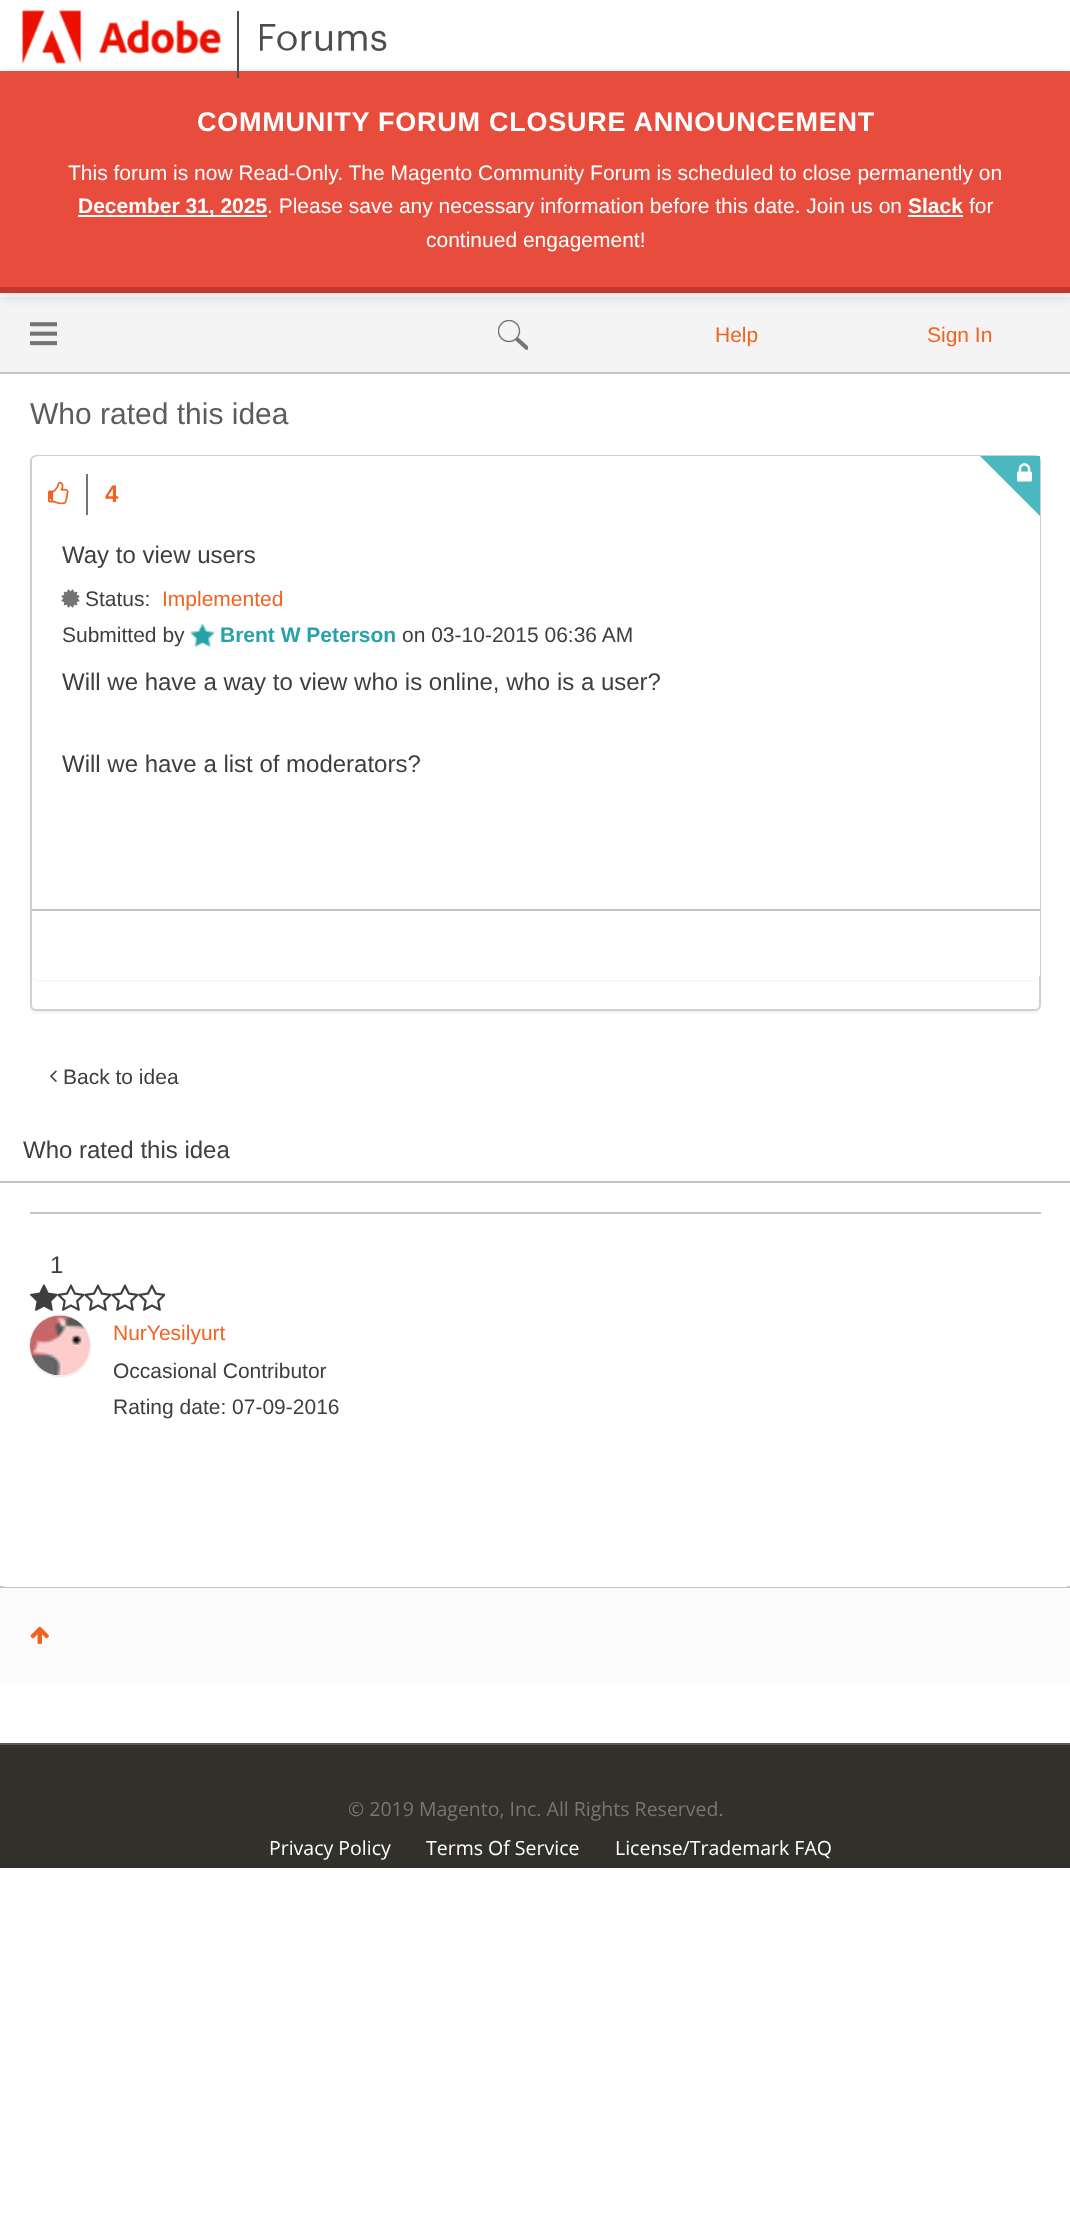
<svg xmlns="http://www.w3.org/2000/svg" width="1070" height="2231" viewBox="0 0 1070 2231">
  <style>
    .t1 { font: bold 27px Liberation Sans; letter-spacing: 0.75px; fill: #fff; }
    .t2 { font: 21px Liberation Sans; fill: #fff; }
    .t3 { font: bold 21px Liberation Sans; fill: #fff; }
    .t4 { font: 21px Liberation Sans; fill: #f16321; }
    .t5 { font: 30px Liberation Sans; fill: #5d5d5d; }
    .t6 { font: bold 24px Liberation Sans; fill: #f16321; }
    .t7 { font: 24px Liberation Sans; fill: #3e3e3e; }
    .t8 { font: 21px Liberation Sans; fill: #3e3e3e; }
    .t9 { font: bold 21px Liberation Sans; fill: #26a2aa; }
    .t10 { font: 19.5px Open Sans; fill: #7b756b; }
    .t11 { font: 19.5px Open Sans; fill: #fff; }
  </style>
  <defs>
    <clipPath id="clip1"><path d="M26 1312H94V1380H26ZM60 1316C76.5 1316 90 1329.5 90 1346C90 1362.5 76.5 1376 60 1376C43.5 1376 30 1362.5 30 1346C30 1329.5 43.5 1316 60 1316Z" clip-rule="evenodd"/></clipPath>
  </defs>
  <rect width="100%" height="100%" fill="#fff"/>
  <rect x="0" y="297" width="1070" height="75" fill="#f4f4f4"/>
  <rect x="0" y="74" width="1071" height="222" fill="#00000026" filter="blur(6px)"/>
  <image x="22" y="10" width="199" height="54" href="images/1.png"/>
  <rect x="0" y="71" width="1070" height="216" fill="#e74c3c"/>
  <rect x="237" y="11" width="2" height="67" fill="#4d4d4d"/>
  <image x="260" y="24" width="127" height="27" href="images/2.png"/>
  <rect x="0" y="287" width="1070" height="6" fill="#c0392b"/>
  <text x="197" y="131" class="t1">COMMUNITY FORUM CLOSURE ANNOUNCEMENT</text>
  <text x="68" y="180" class="t2">This forum is now Read-Only. The Magento Community Forum is scheduled to close permanently on</text>
  <rect x="78" y="215" width="189" height="2" fill="#fff"/>
  <text x="78" y="213" class="t3">December 31, 2025</text>
  <text x="267" y="213" class="t2">. Please save any necessary information before this date. Join us on</text>
  <text x="908" y="213" class="t3">Slack</text>
  <rect x="908" y="215" width="55" height="2" fill="#fff"/>
  <text x="969" y="213" class="t2">for</text>
  <text x="426" y="247" class="t2">continued engagement!</text>
  <rect x="0" y="372" width="1070" height="2" fill="#c4c4c4"/>
  <image x="30" y="322" width="27" height="24" href="images/3.png"/>
  <image x="498" y="320" width="30" height="30" href="images/4.png"/>
  <text x="715" y="342" class="t4">Help</text>
  <text x="927" y="342" class="t4">Sign In</text>
  <text x="30" y="424" class="t5">Who rated this idea</text>
  <rect x="0" y="1586" width="1070" height="2" fill="#c4c4c4"/>
  <rect x="0" y="455" width="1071" height="1132" rx="6" fill="#fff"/>
  <rect x="30" y="456" width="1011" height="557" rx="6" fill="#0000000d" filter="blur(1px)"/>
  <rect x="31" y="456" width="1009" height="554" rx="5" fill="#fff" stroke="#d1d1d1" stroke-width="2"/>
  <rect x="32" y="458" width="1008" height="523" rx="6" fill="#0000000d" filter="blur(1px)"/>
  <rect x="32" y="456" width="1008" height="524" rx="6" fill="#fff"/>
  <path d="M980 456H1040V516Z" fill="#4bb7be"/>
  <image x="1017" y="463" width="15" height="19" href="images/5.png"/>
  <rect x="32" y="909" width="1008" height="2" fill="#c4c4c4"/>
  <image x="48" y="481" width="21" height="24" href="images/6.png"/>
  <rect x="86" y="474" width="2" height="41" fill="#747474"/>
  <text x="105" y="502" class="t6">4</text>
  <text x="62" y="563" class="t7">Way to view users</text>
  <image x="61" y="589" width="19" height="19" href="images/7.png"/>
  <text x="85" y="606" class="t8">Status:</text>
  <text x="162" y="606" class="t4">Implemented</text>
  <text x="62" y="642" class="t8">Submitted by</text>
  <image x="190" y="624" width="25" height="23" href="images/8.png"/>
  <text x="220" y="642" class="t9">Brent W Peterson</text>
  <text x="402" y="642" class="t8">on 03-10-2015 06:36 AM</text>
  <text x="62" y="690" class="t7">Will we have a way to view who is online, who is a user?</text>
  <text x="62" y="772" class="t7">Will we have a list of moderators?</text>
  <image x="50" y="1070" width="7" height="12" href="images/9.png"/>
  <text x="63" y="1084" class="t8">Back to idea</text>
  <rect x="0" y="1181" width="1070" height="2" fill="#c4c4c4"/>
  <text x="23" y="1158" class="t7">Who rated this idea</text>
  <rect x="30" y="1212" width="1011" height="2" fill="#c4c4c4"/>
  <text x="50" y="1273" class="t7">1</text>
  <image x="30" y="1287" width="12" height="24" href="images/10.png"/>
  <image x="42" y="1284" width="15" height="27" href="images/11.png"/>
  <image x="57" y="1287" width="12" height="24" href="images/12.png"/>
  <image x="69" y="1284" width="15" height="27" href="images/13.png"/>
  <image x="84" y="1287" width="12" height="24" href="images/12.png"/>
  <image x="96" y="1284" width="15" height="27" href="images/13.png"/>
  <image x="111" y="1287" width="12" height="24" href="images/12.png"/>
  <image x="123" y="1284" width="15" height="27" href="images/13.png"/>
  <image x="138" y="1287" width="12" height="24" href="images/12.png"/>
  <image x="150" y="1284" width="15" height="27" href="images/13.png"/>
  <g clip-path="url(#clip1)">
    <rect x="30" y="1316" width="60" height="60" rx="30" fill="#c4c4c4" filter="blur(1px)"/>
  </g>
  <image x="30" y="1315" width="60" height="61" href="images/14.png"/>
  <text x="113" y="1340" class="t4">NurYesilyurt</text>
  <text x="113" y="1378" class="t8">Occasional Contributor</text>
  <text x="113" y="1414" class="t8">Rating date: 07-09-2016</text>
  <rect x="0" y="1588" width="1070" height="95" fill="#fbfbfb"/>
  <image x="30" y="1626" width="19" height="18" href="images/15.png"/>
  <rect x="0" y="1745" width="1070" height="123" fill="#31302b"/>
  <rect x="0" y="1743" width="1070" height="2" fill="#5a5955"/>
  <text x="348" y="1816" class="t10">© 2019 Magento, Inc. All Rights Reserved.</text>
  <text x="269" y="1855" class="t11">Privacy Policy</text>
  <text x="426" y="1855" class="t11">Terms Of Service</text>
  <text x="615" y="1855" class="t11">License/Trademark FAQ</text>
</svg>
